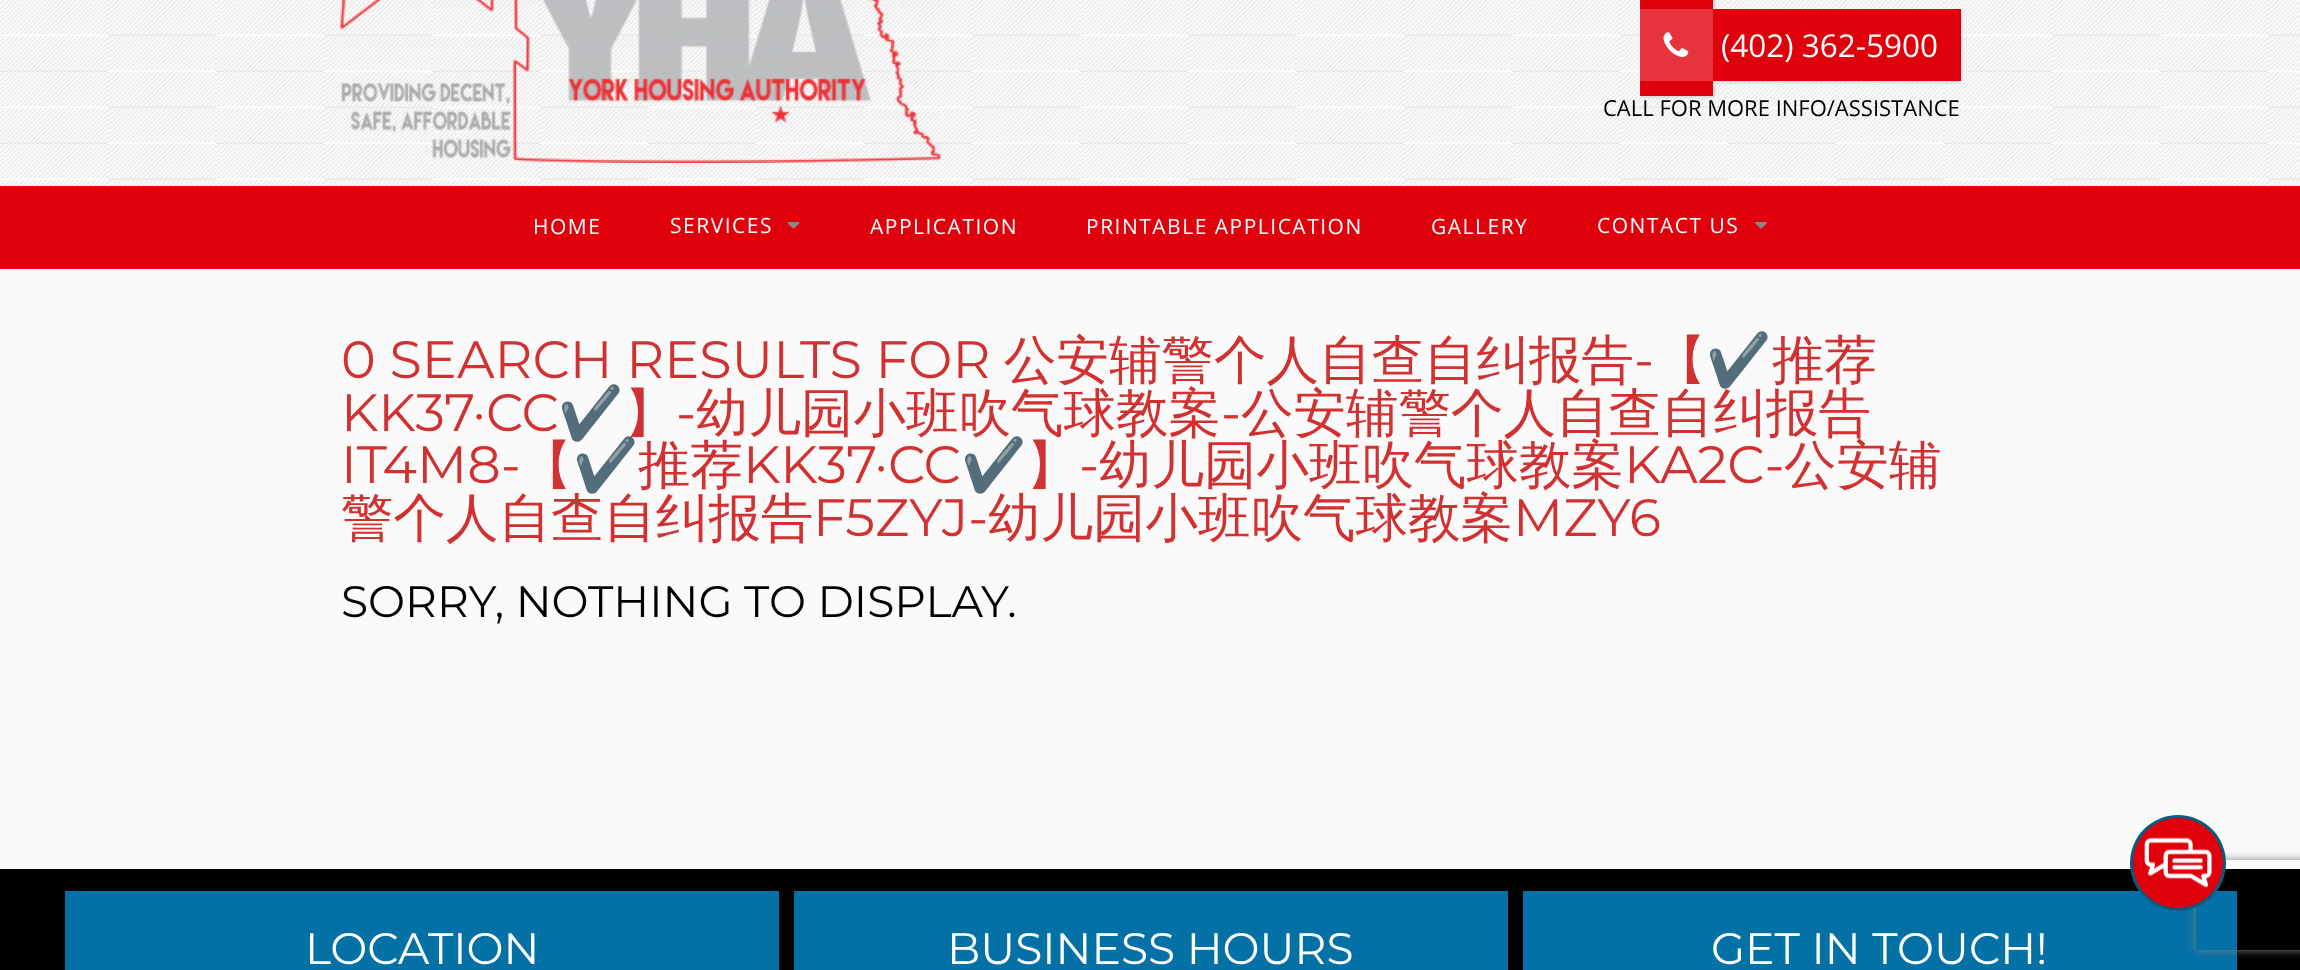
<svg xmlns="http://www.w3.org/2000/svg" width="2300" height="970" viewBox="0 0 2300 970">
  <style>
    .t1 { font: 31.5px Open Sans; fill: #fff; }
    .t2 { font: 22px Open Sans; fill: #000; }
    .t3 { font: 21px Open Sans; letter-spacing: 1.5px; fill: #fff; }
    .t4 { font: 52.5px Montserrat; fill: #d23131; }
    .t5 { font: 500 52.5px WenQuanYi Zen Hei; fill: #d23131; }
    .t6 { font: 52.5px Noto Color Emoji; fill: #d23131; }
    .t7 { font: 44.1px Montserrat; fill: #000; }
    .t8 { font: 44.1px Montserrat; fill: #fff; }
  </style>
  <defs>
    <clipPath id="clip1"><path d="M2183 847H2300V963H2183ZM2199 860H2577C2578.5 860 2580 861.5 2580 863V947C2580 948.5 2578.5 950 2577 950H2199C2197.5 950 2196 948.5 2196 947V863C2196 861.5 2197.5 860 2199 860Z" clip-rule="evenodd"/></clipPath>
  </defs>
  <rect width="100%" height="100%" fill="#fafafa"/>
  <rect x="0" y="0" width="2300" height="186" fill="#fff"/>
  <image x="0" y="0" width="2300" height="186" href="images/1.png"/>
  <image x="340" y="0" width="601" height="163" href="images/2.png"/>
  <rect x="1641" y="-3" width="74" height="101" fill="#0000001a" filter="blur(1px)"/>
  <rect x="1640" y="0" width="73" height="96" fill="#e0000b"/>
  <rect x="1715" y="11" width="247" height="72" fill="#0000001a" filter="blur(1px)"/>
  <rect x="1713" y="9" width="248" height="72" fill="#e0000b"/>
  <rect x="1640" y="9" width="73" height="72" fill="#e6333c"/>
  <image x="1663" y="32" width="26" height="25" href="images/3.png"/>
  <text x="1721" y="57" class="t1">(402) 362-5900</text>
  <text x="1603" y="116" class="t2">CALL FOR MORE INFO/ASSISTANCE</text>
  <rect x="0" y="186" width="2300" height="83" fill="#e0000b"/>
  <text x="533" y="234" class="t3">HOME</text>
  <text x="670" y="233" class="t3">SERVICES</text>
  <image x="787" y="222" width="13" height="7" href="images/4.png"/>
  <text x="870" y="234" class="t3">APPLICATION</text>
  <text x="1086" y="234" class="t3">PRINTABLE APPLICATION</text>
  <text x="1431" y="234" class="t3">GALLERY</text>
  <text x="1597" y="233" class="t3">CONTACT US</text>
  <image x="1755" y="222" width="12" height="7" href="images/5.png"/>
  <text x="341" y="378" class="t4">0 SEARCH RESULTS FOR</text>
  <text x="1004" y="378" class="t5">公安辅警个人自查自纠报告</text>
  <text x="1634" y="378" class="t4">-</text>
  <text x="1654" y="378" class="t5">【</text>
  <text x="1706" y="378" class="t6">✔️</text>
  <text x="1772" y="378" class="t5">推荐</text>
  <text x="341" y="431" class="t4">KK37·CC</text>
  <text x="558" y="431" class="t6">✔️</text>
  <text x="624" y="431" class="t5">】</text>
  <text x="676" y="431" class="t4">-</text>
  <text x="696" y="431" class="t5">幼儿园小班吹气球教案</text>
  <text x="1221" y="431" class="t4">-</text>
  <text x="1241" y="431" class="t5">公安辅警个人自查自纠报告</text>
  <text x="341" y="483" class="t4">IT4M8-</text>
  <text x="520" y="483" class="t5">【</text>
  <text x="573" y="483" class="t6">✔️</text>
  <text x="638" y="483" class="t5">推荐</text>
  <text x="743" y="483" class="t4">KK37·CC</text>
  <text x="961" y="483" class="t6">✔️</text>
  <text x="1026" y="483" class="t5">】</text>
  <text x="1079" y="483" class="t4">-</text>
  <text x="1099" y="483" class="t5">幼儿园小班吹气球教案</text>
  <text x="1624" y="483" class="t4">KA2C-</text>
  <text x="1784" y="483" class="t5">公安辅</text>
  <text x="341" y="536" class="t5">警个人自查自纠报告</text>
  <text x="813" y="536" class="t4">F5ZYJ-</text>
  <text x="988" y="536" class="t5">幼儿园小班吹气球教案</text>
  <text x="1513" y="536" class="t4">MZY6</text>
  <text x="341" y="617" class="t7">SORRY, NOTHING TO DISPLAY.</text>
  <rect x="0" y="869" width="2300" height="101" fill="#000"/>
  <rect x="65" y="891" width="714" height="79" fill="#0471a6"/>
  <text x="305" y="964" class="t8">LOCATION</text>
  <rect x="794" y="891" width="714" height="79" fill="#0471a6"/>
  <text x="947" y="964" class="t8">BUSINESS HOURS</text>
  <rect x="1523" y="891" width="714" height="79" fill="#0471a6"/>
  <text x="1711" y="964" class="t8">GET IN TOUCH!</text>
  <g clip-path="url(#clip1)">
    <rect x="2196" y="860" width="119" height="90" rx="3" fill="#808080" filter="blur(4px)"/>
  </g>
  <circle cx="2178" cy="863" r="48" fill="#065c80"/>
  <circle cx="2178" cy="863" r="45" fill="#e0000b"/>
  <image x="2144" y="837" width="68" height="51" href="images/6.png"/>
</svg>
